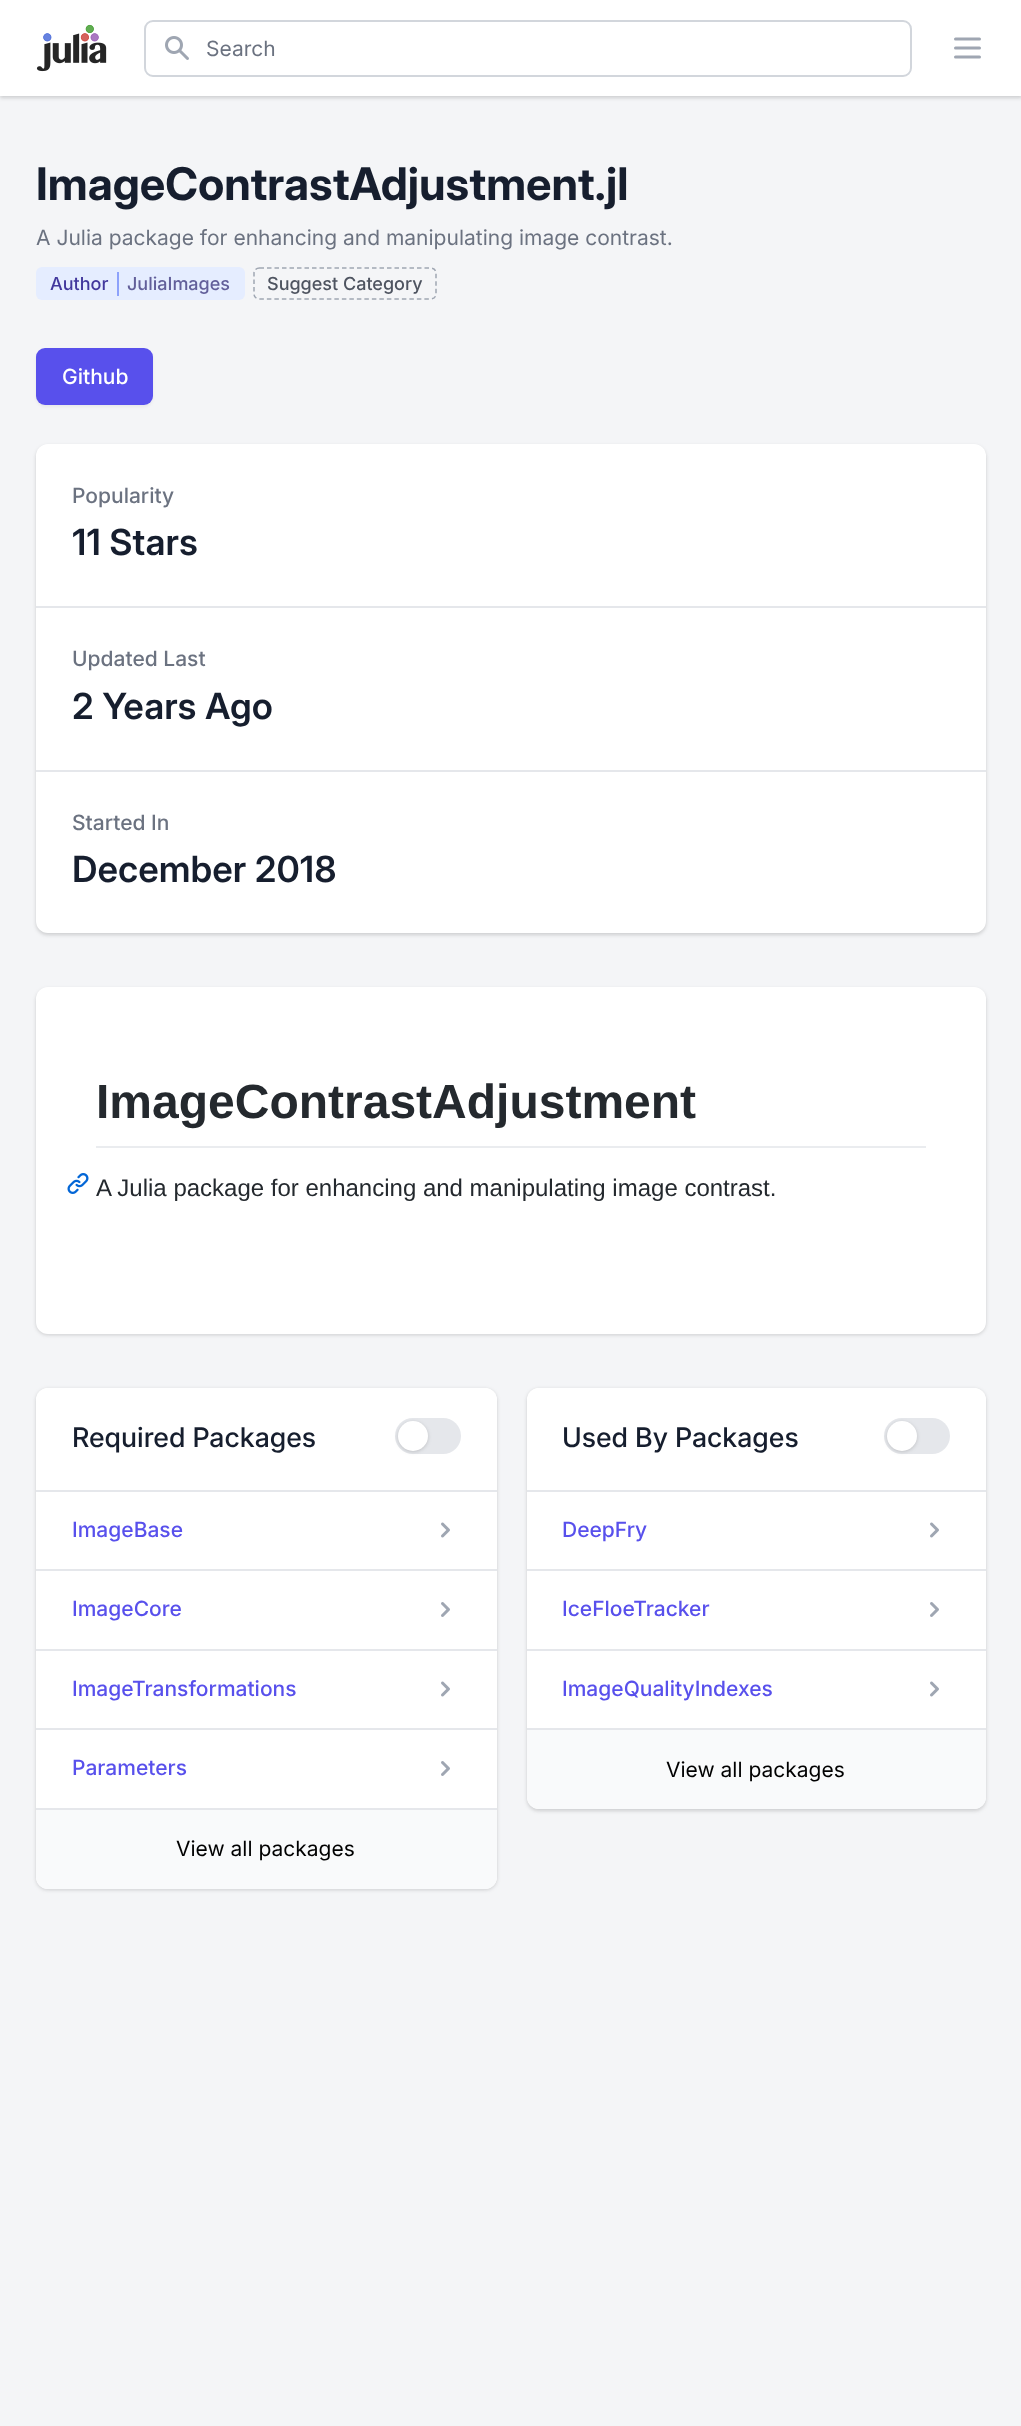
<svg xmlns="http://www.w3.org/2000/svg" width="1021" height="2426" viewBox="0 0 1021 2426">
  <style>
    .t1 { font: 21px Inter; fill: #6b7280; }
    .t2 { font: bold 45px Inter; fill: #161e2e; }
    .t3 { font: 500 18px Inter; fill: #42389d; }
    .t4 { font: 500 18px Inter; fill: #625f9a; }
    .t5 { font: 500 18px Inter; fill: #4e5460; }
    .t6 { font: 500 21px Inter; fill: #fff; }
    .t7 { font: 500 21px Inter; fill: #6b7280; }
    .t8 { font: 600 36px Inter; fill: #161e2e; }
    .t9 { font: bold 48px Liberation Sans; fill: #24292e; }
    .t10 { font: 24px Liberation Sans; fill: #24292e; }
    .t11 { font: 500 27px 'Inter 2'; fill: #161e2e; }
    .t12 { font: 500 21px Inter; fill: #5850ec; }
    .t13 { font: 21px Inter; fill: #000; }
  </style>
  <rect width="100%" height="100%" fill="#f4f5f7"/>
  <rect x="0" y="2" width="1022" height="96" fill="#0000000f" filter="blur(1.5px)"/>
  <rect x="0" y="2" width="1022" height="96" fill="#0000001a" filter="blur(2px)"/>
  <rect x="0" y="0" width="1021" height="96" fill="#fff"/>
  <image x="36" y="24" width="71" height="48" href="images/1.png"/>
  <rect x="145" y="21" width="766" height="55" rx="8" fill="none" stroke="#d2d6dc" stroke-width="2"/>
  <image x="165" y="36" width="24" height="24" href="images/2.png"/>
  <text x="206" y="56" class="t1">Search</text>
  <path d="M955.5 39H979.5M955.5 48H979.5M955.5 57H979.5" fill="none" stroke="#9fa6b2" stroke-width="3" stroke-linecap="round" stroke-linejoin="round"/>
  <text x="36" y="200" class="t2">ImageContrastAdjustment.jl</text>
  <text x="36" y="245" class="t1">A Julia package for enhancing and manipulating image contrast.</text>
  <rect x="36" y="267" width="209" height="33" rx="6" fill="#e5edff"/>
  <rect x="117" y="272" width="2" height="24" fill="#8da2fb"/>
  <text x="50" y="290" class="t3">Author</text>
  <text x="127" y="290" class="t4">JuliaImages</text>
  <path d="M259.5 268H430.5C433.5 268 436 270 436 273V294C436 297 433.5 299 430.5 299H259.5C256.5 299 254 297 254 294V273C254 270 256.5 268 259.5 268Z" fill="none" stroke="#9fa6b2" stroke-width="1.5" stroke-dasharray="4.5 3"/>
  <text x="267" y="290" class="t5">Suggest Category</text>
  <rect x="36" y="350" width="117" height="57" rx="9" fill="#0000000d" filter="blur(1.5px)"/>
  <rect x="36" y="348" width="117" height="57" rx="9" fill="#5850ec"/>
  <text x="62" y="384" class="t6">Github</text>
  <rect x="36" y="446" width="950" height="489" rx="12" fill="#0000000f" filter="blur(1.5px)"/>
  <rect x="36" y="446" width="950" height="489" rx="12" fill="#0000001a" filter="blur(2px)"/>
  <rect x="36" y="444" width="950" height="489" rx="12" fill="#fff"/>
  <text x="72" y="503" class="t7">Popularity</text>
  <text x="72" y="555" class="t8">11 Stars</text>
  <rect x="36" y="606" width="950" height="2" fill="#e5e7eb"/>
  <text x="72" y="666" class="t7">Updated Last</text>
  <text x="72" y="719" class="t8">2 Years Ago</text>
  <rect x="36" y="770" width="950" height="2" fill="#e5e7eb"/>
  <text x="72" y="830" class="t7">Started In</text>
  <text x="72" y="882" class="t8">December 2018</text>
  <rect x="36" y="989" width="950" height="346" rx="12" fill="#0000000f" filter="blur(1.5px)"/>
  <rect x="36" y="989" width="950" height="346" rx="12" fill="#0000001a" filter="blur(2px)"/>
  <rect x="36" y="987" width="950" height="347" rx="12" fill="#fff"/>
  <rect x="96" y="1146" width="830" height="2" fill="#eaecef"/>
  <text x="96" y="1118" class="t9">ImageContrastAdjustment</text>
  <image x="67" y="1173" width="22" height="21" href="images/3.png"/>
  <text x="96" y="1196" class="t10">A Julia package for enhancing and manipulating image contrast.</text>
  <rect x="36" y="1389" width="461" height="501" rx="12" fill="#0000000f" filter="blur(1.5px)"/>
  <rect x="36" y="1389" width="461" height="501" rx="12" fill="#0000001a" filter="blur(2px)"/>
  <rect x="36" y="1388" width="461" height="501" rx="12" fill="#fff"/>
  <path d="M48 1388H485C491.5 1388 497 1393.5 497 1400V1490H36V1400C36 1393.5 41.5 1388 48 1388Z" fill="#fff"/>
  <rect x="36" y="1490" width="461" height="2" fill="#e5e7eb"/>
  <text x="72" y="1447" class="t11">Required Packages</text>
  <rect x="395" y="1418" width="66" height="36" rx="18" fill="#e5e7eb"/>
  <rect x="398" y="1422" width="30" height="30" rx="15" fill="#0000000f" filter="blur(1.5px)"/>
  <rect x="398" y="1422" width="30" height="30" rx="15" fill="#0000001a" filter="blur(2px)"/>
  <circle cx="413" cy="1436" r="15" fill="#fff"/>
  <text x="72" y="1537" class="t12">ImageBase</text>
  <image x="441" y="1522" width="9" height="16" href="images/4.png"/>
  <rect x="36" y="1569" width="461" height="2" fill="#e5e7eb"/>
  <text x="72" y="1616" class="t12">ImageCore</text>
  <image x="441" y="1602" width="9" height="15" href="images/5.png"/>
  <rect x="36" y="1649" width="461" height="2" fill="#e5e7eb"/>
  <text x="72" y="1696" class="t12">ImageTransformations</text>
  <image x="441" y="1681" width="9" height="16" href="images/4.png"/>
  <rect x="36" y="1728" width="461" height="2" fill="#e5e7eb"/>
  <text x="72" y="1775" class="t12">Parameters</text>
  <image x="441" y="1761" width="9" height="15" href="images/5.png"/>
  <path d="M36 1809H497V1877C497 1883.5 491.5 1889 485 1889H48C41.5 1889 36 1883.5 36 1877Z" fill="#f9fafb"/>
  <rect x="36" y="1808" width="461" height="2" fill="#e5e7eb"/>
  <text x="176" y="1856" class="t13">View all packages</text>
  <rect x="527" y="1389" width="459" height="422" rx="12" fill="#0000000f" filter="blur(1.5px)"/>
  <rect x="527" y="1389" width="459" height="422" rx="12" fill="#0000001a" filter="blur(2px)"/>
  <rect x="527" y="1388" width="459" height="421" rx="12" fill="#fff"/>
  <path d="M539 1388H974C980.5 1388 986 1393.5 986 1400V1490H527V1400C527 1393.5 532.5 1388 539 1388Z" fill="#fff"/>
  <rect x="527" y="1490" width="459" height="2" fill="#e5e7eb"/>
  <text x="562" y="1447" class="t11">Used By Packages</text>
  <rect x="884" y="1418" width="66" height="36" rx="18" fill="#e5e7eb"/>
  <rect x="887" y="1422" width="30" height="30" rx="15" fill="#0000000f" filter="blur(1.5px)"/>
  <rect x="887" y="1422" width="30" height="30" rx="15" fill="#0000001a" filter="blur(2px)"/>
  <circle cx="902" cy="1436" r="15" fill="#fff"/>
  <text x="562" y="1537" class="t12">DeepFry</text>
  <image x="930" y="1522" width="9" height="16" href="images/4.png"/>
  <rect x="527" y="1569" width="459" height="2" fill="#e5e7eb"/>
  <text x="562" y="1616" class="t12">IceFloeTracker</text>
  <image x="930" y="1602" width="9" height="15" href="images/5.png"/>
  <rect x="527" y="1649" width="459" height="2" fill="#e5e7eb"/>
  <text x="562" y="1696" class="t12">ImageQualityIndexes</text>
  <image x="930" y="1681" width="9" height="16" href="images/4.png"/>
  <path d="M527 1730H986V1797C986 1803.5 980.5 1809 974 1809H539C532.5 1809 527 1803.5 527 1797Z" fill="#f9fafb"/>
  <rect x="527" y="1728" width="459" height="2" fill="#e5e7eb"/>
  <text x="666" y="1777" class="t13">View all packages</text>
</svg>
